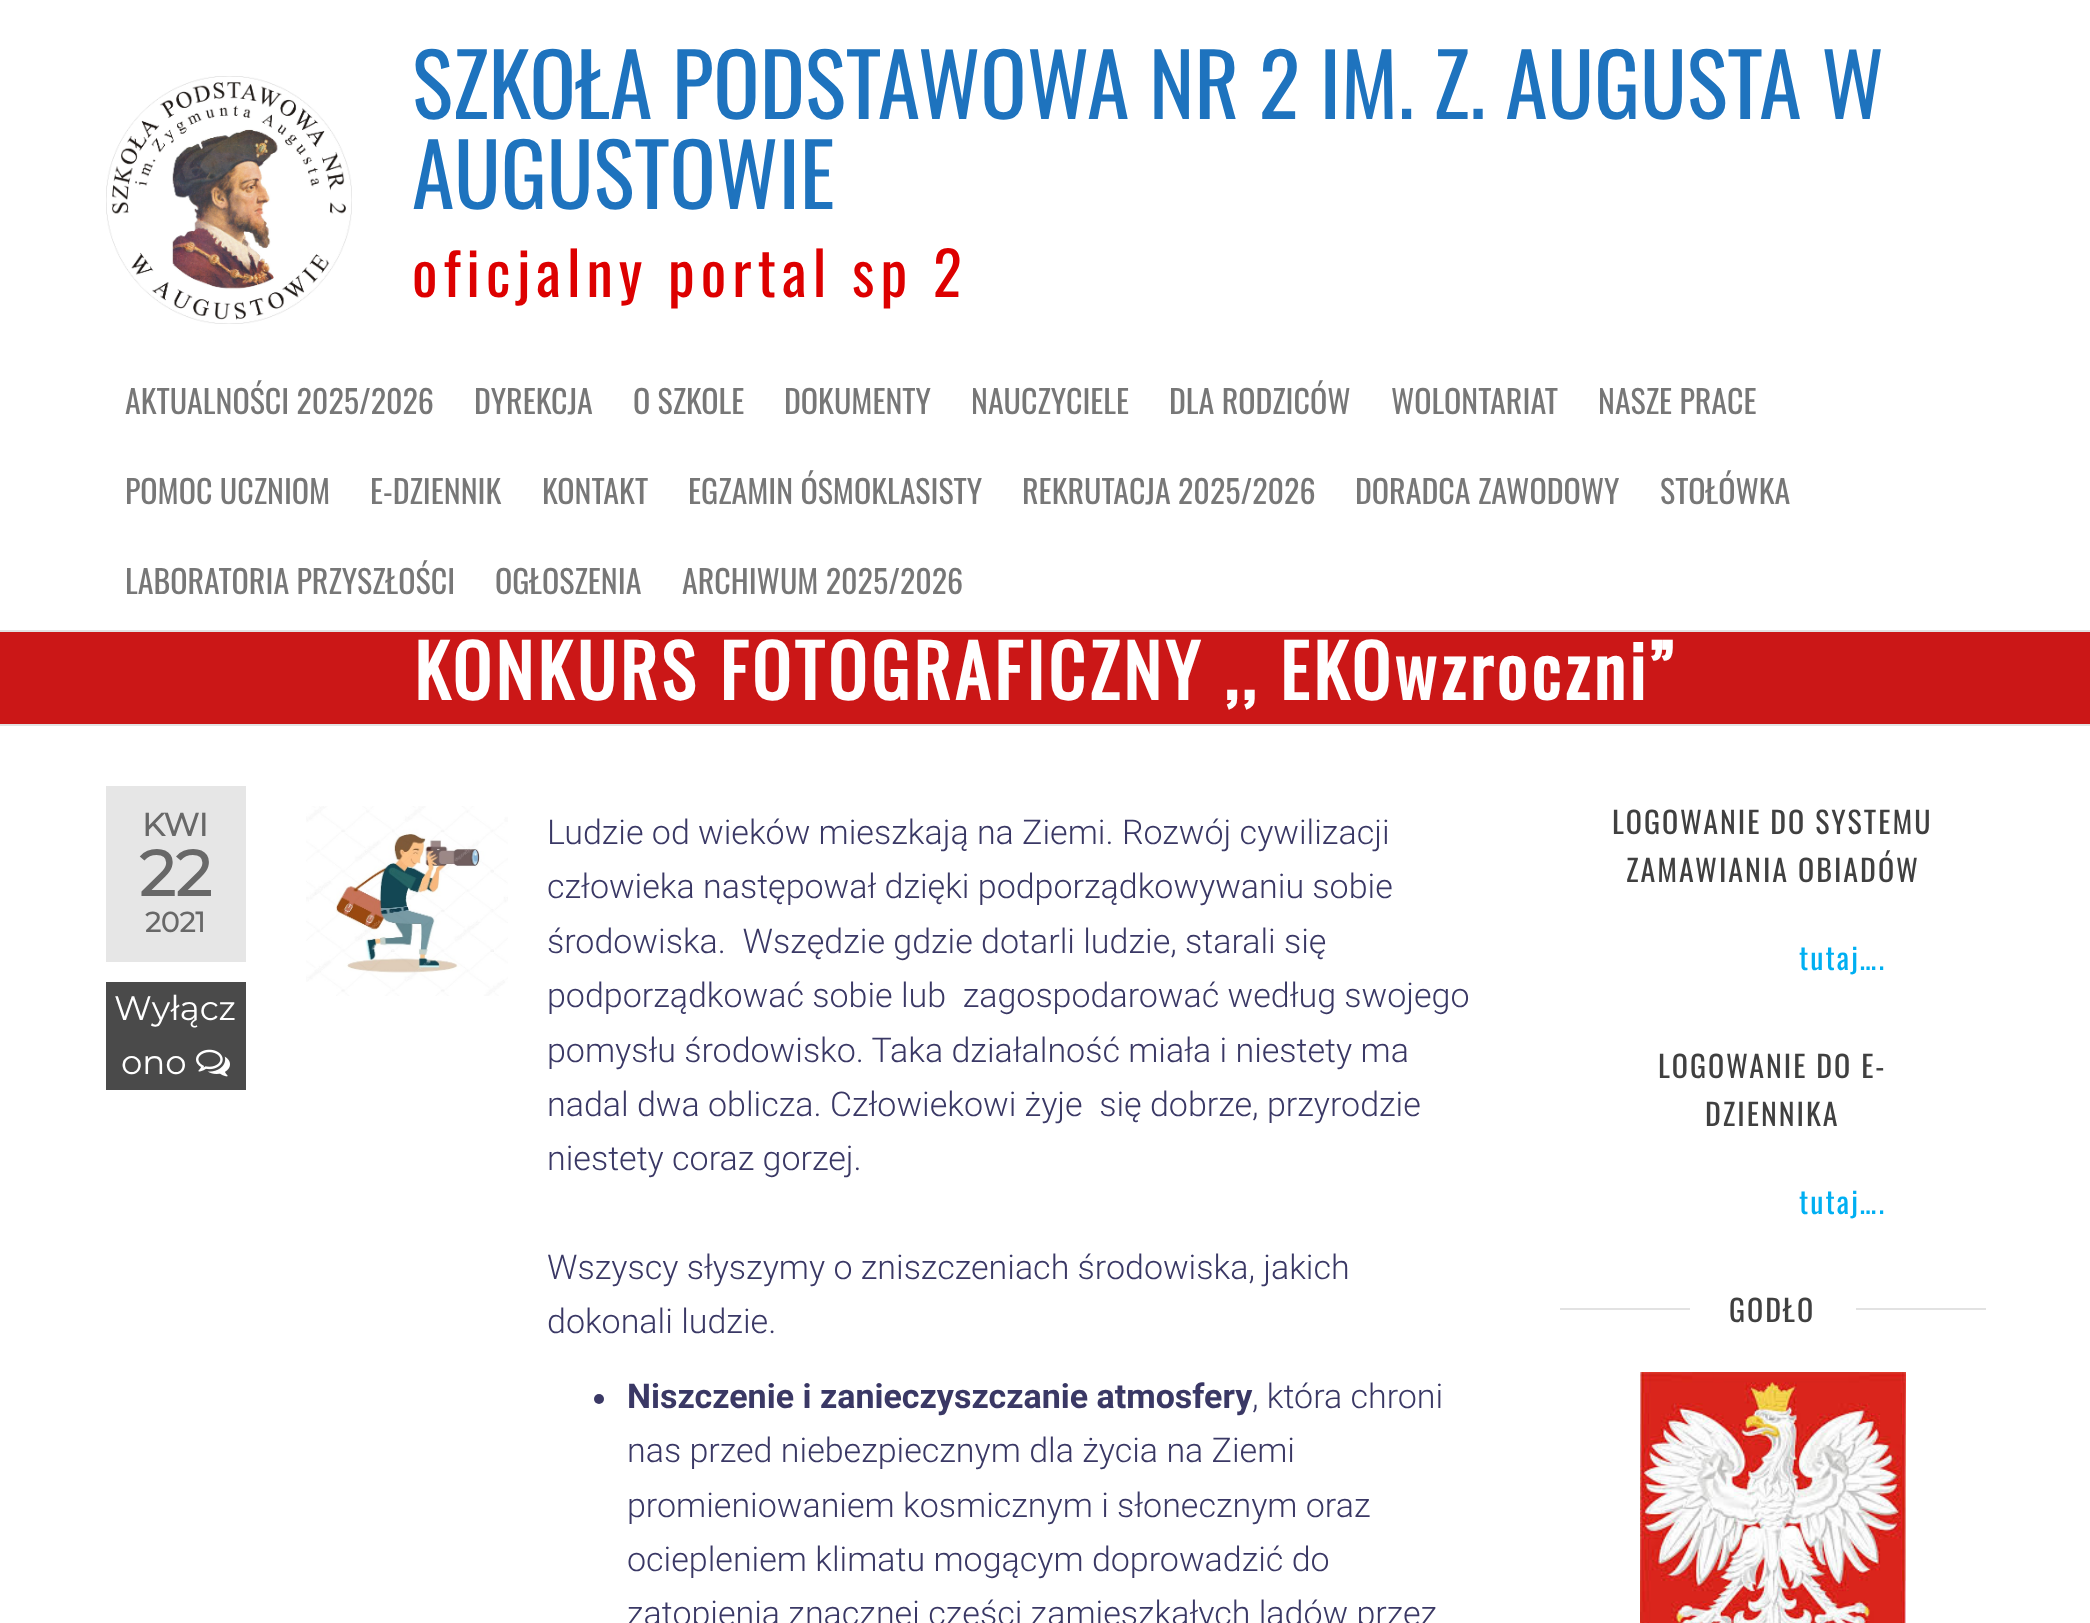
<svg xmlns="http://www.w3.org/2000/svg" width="2090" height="1623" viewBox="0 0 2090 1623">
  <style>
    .t1 { font: 86px Oswald; fill: #1e73be; }
    .t2 { font: 60px Oswald; letter-spacing: 6px; fill: #d00; }
    .t3 { font: 32px Oswald; fill: #777; }
    .t4 { font: bold 72px Oswald; letter-spacing: 4px; fill: #fff; }
    .t5 { font: bold 32px Montserrat; fill: #686868; }
    .t6 { font: bold 64px Montserrat; fill: #686868; }
    .t7 { font: bold 28px Montserrat; fill: #686868; }
    .t8 { font: 100 34px Montserrat; fill: #fff; }
    .t9 { font: 300 34px Roboto; fill: #3a3865; }
    .t10 { font: bold 34px Roboto; fill: #3a3865; }
    .t11 { font: 30px Oswald; letter-spacing: 2px; fill: #404040; }
    .t12 { font: 30px Oswald; letter-spacing: 2px; fill: #00aff2; }
  </style>
  <rect width="100%" height="100%" fill="#fff"/>
  <rect x="0" y="630" width="2090" height="2" fill="#e2e2e2"/>
  <image x="106" y="76" width="246" height="248" href="images/1.png"/>
  <text x="412" y="119" class="t1">SZKOŁA PODSTAWOWA NR 2 IM. Z. AUGUSTA W</text>
  <text x="412" y="209" class="t1">AUGUSTOWIE</text>
  <text x="412" y="297" class="t2">oficjalny portal sp 2</text>
  <text x="125" y="414" class="t3">AKTUALNOŚCI 2025/2026</text>
  <text x="474" y="414" class="t3">DYREKCJA</text>
  <text x="633" y="414" class="t3">O SZKOLE</text>
  <text x="784" y="414" class="t3">DOKUMENTY</text>
  <text x="971" y="414" class="t3">NAUCZYCIELE</text>
  <text x="1169" y="414" class="t3">DLA RODZICÓW</text>
  <text x="1391" y="414" class="t3">WOLONTARIAT</text>
  <text x="1598" y="414" class="t3">NASZE PRACE</text>
  <text x="125" y="504" class="t3">POMOC UCZNIOM</text>
  <text x="370" y="504" class="t3">E-DZIENNIK</text>
  <text x="542" y="504" class="t3">KONTAKT</text>
  <text x="688" y="504" class="t3">EGZAMIN ÓSMOKLASISTY</text>
  <text x="1022" y="504" class="t3">REKRUTACJA 2025/2026</text>
  <text x="1355" y="504" class="t3">DORADCA ZAWODOWY</text>
  <text x="1660" y="504" class="t3">STOŁÓWKA</text>
  <text x="125" y="594" class="t3">LABORATORIA PRZYSZŁOŚCI</text>
  <text x="495" y="594" class="t3">OGŁOSZENIA</text>
  <text x="682" y="594" class="t3">ARCHIWUM 2025/2026</text>
  <rect x="0" y="724" width="2090" height="2" fill="#e2e2e2"/>
  <rect x="0" y="632" width="2090" height="92" fill="#cb1717"/>
  <text x="414" y="700" class="t4">KONKURS FOTOGRAFICZNY ,, EKOwzroczni”</text>
  <rect x="106" y="786" width="140" height="176" fill="#e6e6e6"/>
  <text x="142" y="836" class="t5">KWI</text>
  <text x="139" y="896" class="t6">22</text>
  <text x="145" y="932" class="t7">2021</text>
  <rect x="106" y="982" width="140" height="108" fill="#4a4a4a"/>
  <text x="114" y="1020" class="t8">Wyłącz</text>
  <text x="121" y="1074" class="t8">ono</text>
  <image x="196" y="1049" width="34" height="28" href="images/2.png"/>
  <image x="306" y="806" width="202" height="190" href="images/3.png"/>
  <text x="547" y="844" class="t9">Ludzie od wieków mieszkają na Ziemi. Rozwój cywilizacji</text>
  <text x="547" y="898" class="t9">człowieka następował dzięki podporządkowywaniu sobie</text>
  <text x="547" y="953" class="t9" xml:space="preserve">środowiska.  Wszędzie gdzie dotarli ludzie, starali się</text>
  <text x="547" y="1007" class="t9" xml:space="preserve">podporządkować sobie lub  zagospodarować według swojego</text>
  <text x="547" y="1062" class="t9">pomysłu środowisko. Taka działalność miała i niestety ma</text>
  <text x="547" y="1116" class="t9" xml:space="preserve">nadal dwa oblicza. Człowiekowi żyje  się dobrze, przyrodzie</text>
  <text x="547" y="1170" class="t9">niestety coraz gorzej.</text>
  <text x="547" y="1279" class="t9">Wszyscy słyszymy o zniszczeniach środowiska, jakich</text>
  <text x="547" y="1333" class="t9">dokonali ludzie.</text>
  <circle cx="599" cy="1399" r="5" fill="#3a3865"/>
  <text x="627" y="1408" class="t10">Niszczenie i zanieczyszczanie atmosfery</text>
  <text x="1252" y="1408" class="t9">, która chroni</text>
  <text x="627" y="1462" class="t9">nas przed niebezpiecznym dla życia na Ziemi</text>
  <text x="627" y="1517" class="t9">promieniowaniem kosmicznym i słonecznym oraz</text>
  <text x="627" y="1571" class="t9">ociepleniem klimatu mogącym doprowadzić do</text>
  <text x="627" y="1625" class="t9">zatopienia znacznej części zamieszkałych lądów przez</text>
  <text x="1612" y="834" class="t11">LOGOWANIE DO SYSTEMU</text>
  <text x="1626" y="882" class="t11">ZAMAWIANIA OBIADÓW</text>
  <text x="1799" y="970" class="t12">tutaj….</text>
  <text x="1658" y="1078" class="t11">LOGOWANIE DO E-</text>
  <text x="1705" y="1126" class="t11">DZIENNIKA</text>
  <text x="1799" y="1214" class="t12">tutaj….</text>
  <rect x="1560" y="1308" width="426" height="2" fill="#e2e2e2"/>
  <rect x="1690" y="1308" width="166" height="2" fill="#fff"/>
  <text x="1729" y="1322" class="t11">GODŁO</text>
  <image x="1640" y="1372" width="266" height="251" href="images/4.png"/>
</svg>
